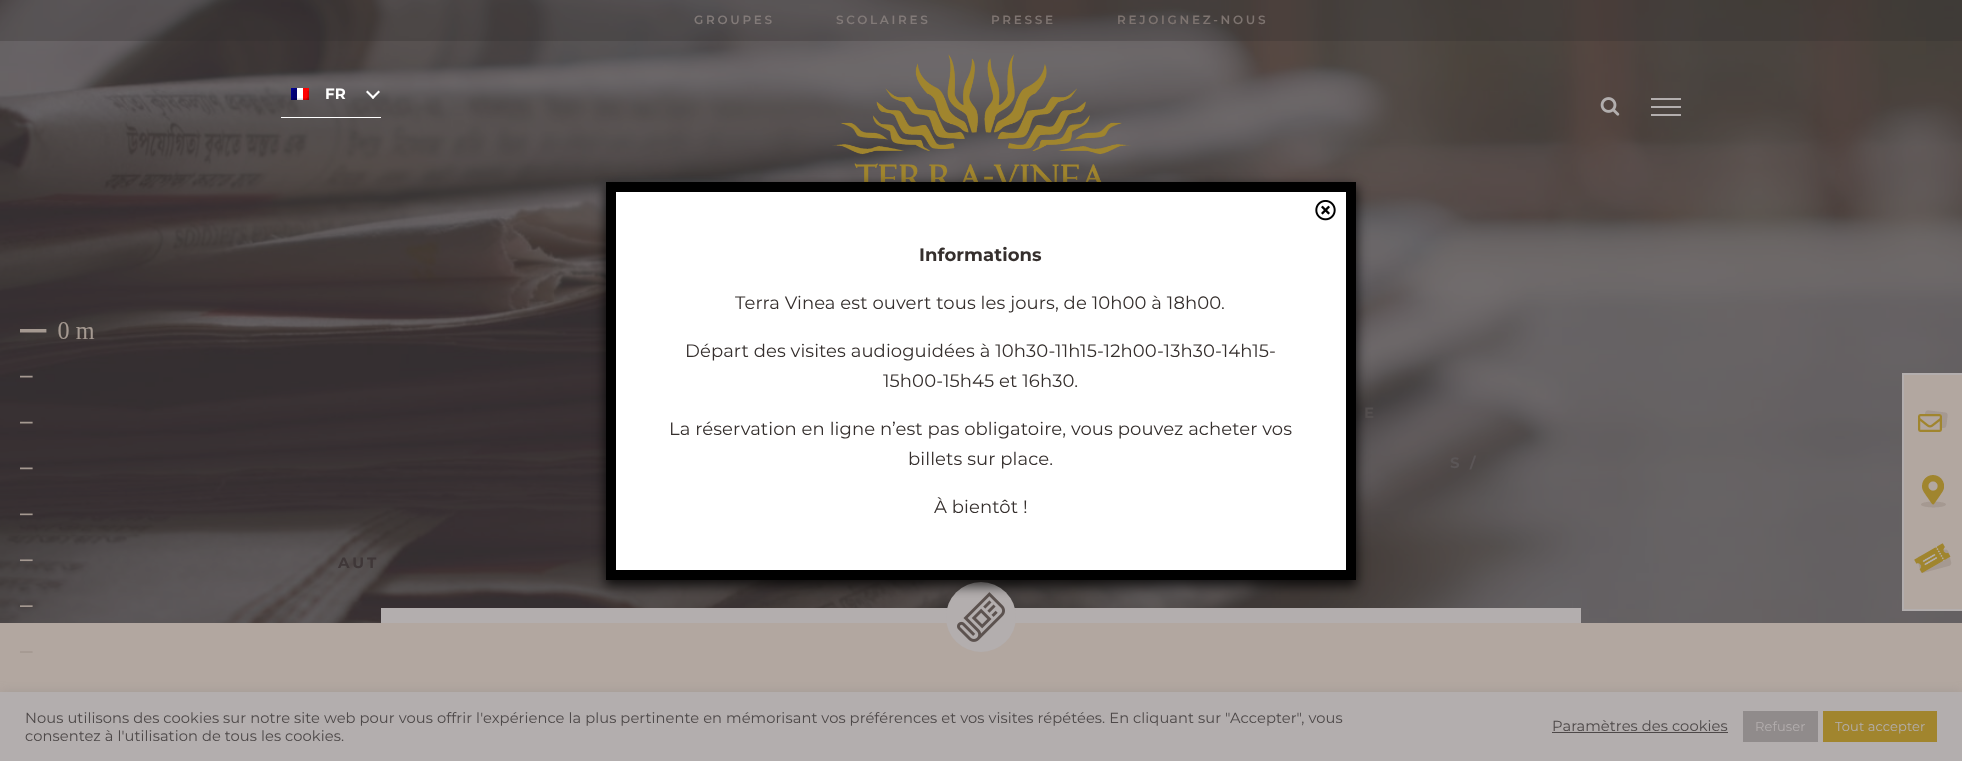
<svg xmlns="http://www.w3.org/2000/svg" width="1962" height="761" viewBox="0 0 1962 761">
  <style>
    .t1 { font: bold 15px Montserrat; letter-spacing: 0.09px; fill: #fff; }
    .t2 { font: 600 12px Montserrat; letter-spacing: 2.7px; fill: #827a78; }
    .t3 { font: 600 12px Montserrat; letter-spacing: 2.7px; fill: #7e7470; }
    .t4 { font: bold 15px Montserrat; letter-spacing: 3px; fill: #555050; }
    .t5 { font: bold 15px Montserrat; letter-spacing: 3px; fill: #5b5657; }
    .t6 { font: bold 15px Montserrat; letter-spacing: 3px; fill: #3f3738; }
    .t7 { font: bold 18px Montserrat; letter-spacing: 0.09px; fill: #352f2d; }
    .t8 { font: 18px Montserrat; letter-spacing: 0.09px; fill: #352f2d; }
    .t9 { font: 14.67px Montserrat; letter-spacing: 0.09px; fill: #4d4848; }
    .t10 { font: 13px Montserrat; letter-spacing: 0.09px; fill: #b3aeae; }
  </style>
  <rect width="100%" height="100%" fill="#b2a7a0"/>
  <image x="0" y="0" width="1962" height="623" href="images/1.png"/>
  <rect x="281" y="117" width="100" height="1" fill="#fff"/>
  <image x="291" y="88" width="18" height="12" href="images/2.png"/>
  <text x="325" y="99" class="t1">FR</text>
  <path d="M371.5 97.5L378.5 90.5L380 92L373 99Z" fill="#fff"/>
  <path d="M366 92L367.5 90.5L374.5 97.5L373 99Z" fill="#fff"/>
  <rect x="0" y="0" width="1962" height="41" fill="#332e2e4d"/>
  <text x="694" y="24" class="t2">GROUPES</text>
  <text x="836" y="24" class="t2">SCOLAIRES</text>
  <text x="991" y="24" class="t3">PRESSE</text>
  <text x="1117" y="24" class="t3">REJOIGNEZ-NOUS</text>
  <image x="832" y="54" width="299" height="128" href="images/3.png"/>
  <image x="1600" y="97" width="20" height="19" href="images/4.png"/>
  <rect x="1651" y="98" width="30" height="2" fill="#b3aeae"/>
  <rect x="1651" y="106" width="30" height="2" fill="#b3aeae"/>
  <rect x="1651" y="114" width="30" height="2" fill="#b3aeae"/>
  <text x="1364" y="418" class="t4">E</text>
  <text x="1450" y="468" class="t5">S /</text>
  <text x="338" y="568" class="t6">AUT</text>
  <rect x="381" y="608" width="1200" height="15" fill="#b3aeae"/>
  <circle cx="981" cy="617" r="35" fill="#b3aeae"/>
  <image x="957" y="592" width="48" height="50" href="images/5.png"/>
  <image x="20" y="322" width="75" height="331" href="images/6.png"/>
  <rect x="605" y="186" width="752" height="400" fill="#000000bf" filter="blur(6px)"/>
  <rect x="611" y="187" width="740" height="388" fill="#fff" stroke="#000" stroke-width="10"/>
  <image x="1315" y="200" width="21" height="21" href="images/7.png"/>
  <text x="919" y="261" class="t7">Informations</text>
  <text x="735" y="309" class="t8">Terra Vinea est ouvert tous les jours, de 10h00 à 18h00.</text>
  <text x="685" y="357" class="t8">Départ des visites audioguidées à 10h30-11h15-12h00-13h30-14h15-</text>
  <text x="883" y="387" class="t8">15h00-15h45 et 16h30.</text>
  <text x="669" y="435" class="t8">La réservation en ligne n’est pas obligatoire, vous pouvez acheter vos</text>
  <text x="908" y="465" class="t8">billets sur place.</text>
  <text x="934" y="513" class="t8">À bientôt !</text>
  <rect x="1904" y="375" width="58" height="234" fill="#b2a7a0"/>
  <rect x="1902" y="373" width="60" height="2" fill="#b3aeae"/>
  <rect x="1902" y="609" width="60" height="2" fill="#b3aeae"/>
  <rect x="1902" y="373" width="2" height="238" fill="#b3aeae"/>
  <image x="1918" y="410" width="30" height="22" href="images/8.png"/>
  <image x="1921" y="475" width="25" height="33" href="images/9.png"/>
  <image x="1914" y="543" width="38" height="30" href="images/10.png"/>
  <rect x="0" y="691" width="1962" height="69" fill="#8984844d" filter="blur(5px)"/>
  <rect x="0" y="692" width="1962" height="69" fill="#b3aeae"/>
  <text x="25" y="723" class="t9">Nous utilisons des cookies sur notre site web pour vous offrir l'expérience la plus pertinente en mémorisant vos préférences et vos visites répétées. En cliquant sur "Accepter", vous</text>
  <text x="25" y="741" class="t9">consentez à l'utilisation de tous les cookies.</text>
  <text x="1552" y="731" class="t9">Paramètres des cookies</text>
  <rect x="1552" y="732" width="176" height="1" fill="#4d4848"/>
  <rect x="1743" y="711" width="75" height="31" fill="#908b8b"/>
  <text x="1755" y="731" class="t10">Refuser</text>
  <rect x="1823" y="711" width="114" height="31" fill="#a1852e"/>
  <text x="1835" y="731" class="t10">Tout accepter</text>
</svg>
